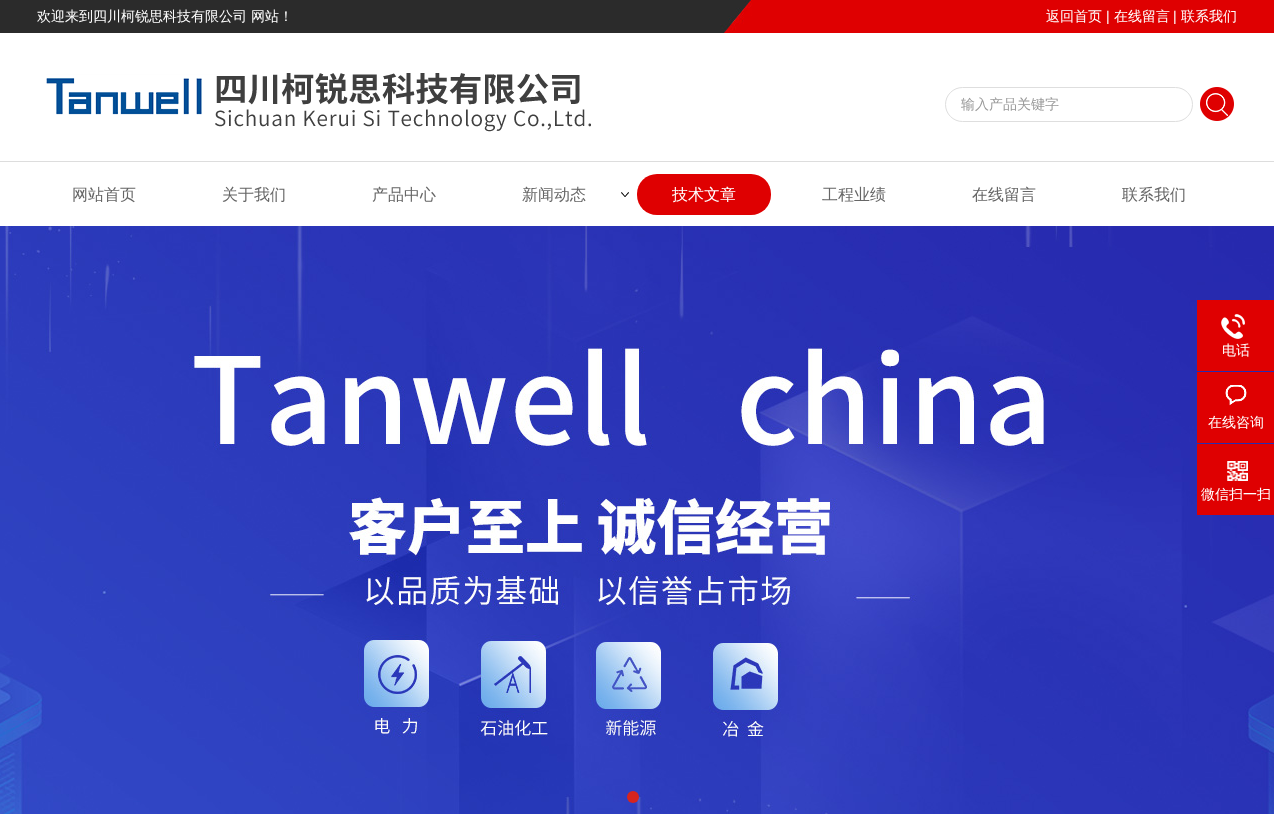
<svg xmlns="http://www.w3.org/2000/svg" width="1274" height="814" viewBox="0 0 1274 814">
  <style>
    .t1 { font: 500 14px WenQuanYi Zen Hei; fill: #fff; }
    .t2 { font: 14px Liberation Sans; fill: #fff; }
    .t3 { font: 500 14px WenQuanYi Zen Hei; fill: #999; }
    .t4 { font: 500 16px WenQuanYi Zen Hei; fill: #666; }
    .t5 { font: 500 16px WenQuanYi Zen Hei; fill: #fff; }
  </style>
  <rect width="100%" height="100%" fill="#fff"/>
  <image x="0" y="0" width="1274" height="33" href="images/1.png"/>
  <text x="37" y="21" class="t1">欢迎来到四川柯锐思科技有限公司</text>
  <text x="251" y="21" class="t1">网站！</text>
  <text x="1046" y="21" class="t1">返回首页</text>
  <text x="1106" y="21" class="t2">|</text>
  <text x="1114" y="21" class="t1">在线留言</text>
  <text x="1173" y="21" class="t2">|</text>
  <text x="1181" y="21" class="t1">联系我们</text>
  <image x="46" y="73" width="545" height="59" href="images/2.png"/>
  <rect x="945.5" y="87.5" width="247" height="34" rx="17" fill="none" stroke="#dedede"/>
  <text x="961" y="109" class="t3">输入产品关键字</text>
  <image x="1200" y="87" width="34" height="34" href="images/3.png"/>
  <rect x="0" y="161" width="1274" height="1" fill="#ddd"/>
  <text x="72" y="200" class="t4">网站首页</text>
  <text x="222" y="200" class="t4">关于我们</text>
  <text x="372" y="200" class="t4">产品中心</text>
  <text x="522" y="200" class="t4">新闻动态</text>
  <image x="621" y="192" width="8" height="5" href="images/4.png"/>
  <rect x="637" y="174" width="134" height="41" rx="20" fill="#df0001"/>
  <text x="672" y="200" class="t5">技术文章</text>
  <text x="822" y="200" class="t4">工程业绩</text>
  <text x="972" y="200" class="t4">在线留言</text>
  <text x="1122" y="200" class="t4">联系我们</text>
  <image x="0" y="226" width="1274" height="588" href="images/5.png"/>
  <circle cx="633" cy="797" r="6" fill="#d7241d"/>
  <rect x="1197" y="300" width="77" height="71" fill="#df0001"/>
  <image x="1221" y="314" width="24" height="25" href="images/6.png"/>
  <text x="1222" y="355" class="t1">电话</text>
  <rect x="1197" y="372" width="77" height="71" fill="#df0001"/>
  <image x="1225" y="385" width="22" height="21" href="images/7.png"/>
  <text x="1208" y="427" class="t1">在线咨询</text>
  <rect x="1197" y="444" width="77" height="71" fill="#df0001"/>
  <image x="1227" y="461" width="21" height="20" href="images/8.png"/>
  <text x="1201" y="499" class="t1">微信扫一扫</text>
</svg>
